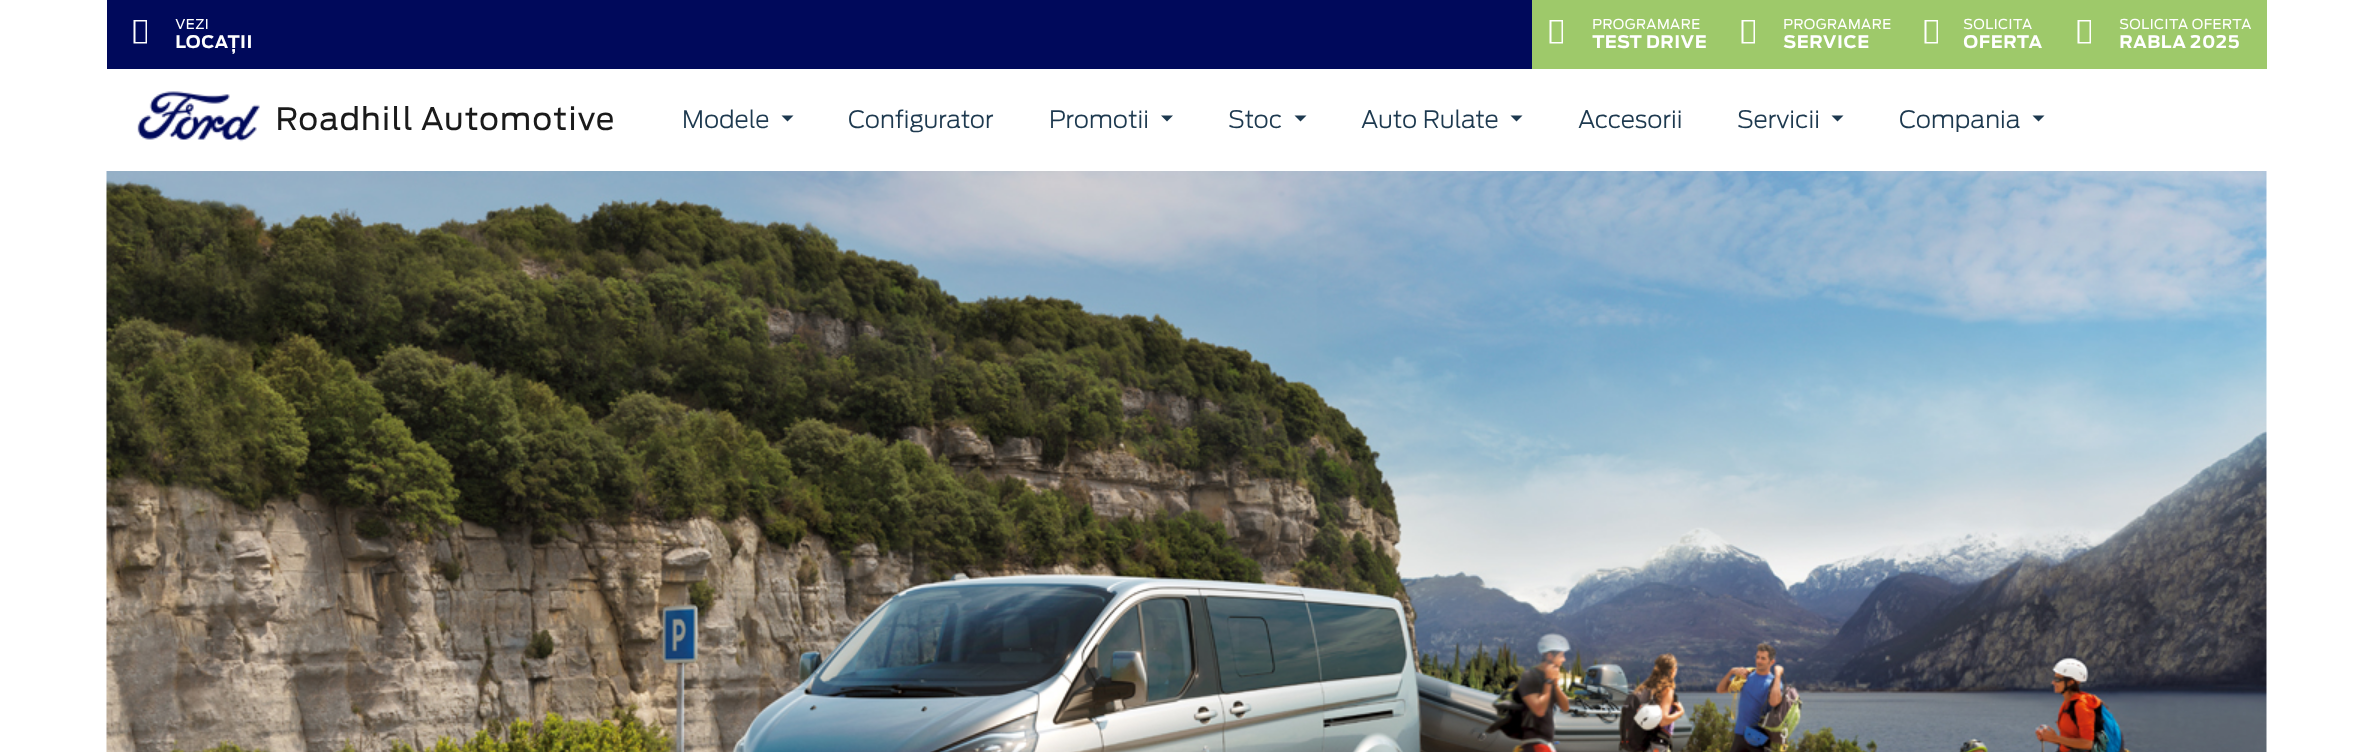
<svg xmlns="http://www.w3.org/2000/svg" width="2373" height="752" viewBox="0 0 2373 752">
  <style>
    .t1 { font: 13.25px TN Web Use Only; fill: #fff; }
    .t2 { font: bold 16.75px TN Web Use Only; fill: #fff; }
    .t3 { font: 30px TN Web Use Only; fill: #1a1a1a; }
    .t4 { font: 300 24px 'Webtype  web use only'; fill: #1d394f; }
  </style>
  <rect width="100%" height="100%" fill="#fff"/>
  <rect x="107" y="0" width="1425" height="69" fill="#00095b"/>
  <path d="M133.5 43.5V20H147V43.5ZM135.5 42H145.5V21.5H135.5Z" fill="#fff"/>
  <text x="175" y="29" class="t1">VEZI</text>
  <text x="175" y="48" class="t2">LOCAȚII</text>
  <rect x="1532" y="0" width="735" height="69" fill="#9ec96a"/>
  <path d="M1549.5 43.5V20H1563V43.5ZM1551.5 42H1561.5V21.5H1551.5Z" fill="#fff"/>
  <text x="1592" y="29" class="t1">PROGRAMARE</text>
  <text x="1592" y="48" class="t2">TEST DRIVE</text>
  <path d="M1741.5 43.5V20H1755V43.5ZM1743.5 42H1753.5V21.5H1743.5Z" fill="#fff"/>
  <text x="1783" y="29" class="t1">PROGRAMARE</text>
  <text x="1783" y="48" class="t2">SERVICE</text>
  <path d="M1924.5 43.5V20H1938V43.5ZM1926.5 42H1936.5V21.5H1926.5Z" fill="#fff"/>
  <text x="1963" y="29" class="t1">SOLICITA</text>
  <text x="1963" y="48" class="t2">OFERTA</text>
  <path d="M2077.5 43.5V20H2091V43.5ZM2079.5 42H2089.5V21.5H2079.5Z" fill="#fff"/>
  <text x="2119" y="29" class="t1">SOLICITA OFERTA</text>
  <text x="2119" y="48" class="t2">RABLA 2025</text>
  <image x="137" y="91" width="123" height="51" href="images/1.png"/>
  <text x="275" y="130" class="t3">Roadhill Automotive</text>
  <text x="682" y="128" class="t4">Modele</text>
  <path d="M781.5 115.5H793.5L787.5 121.5Z" fill="#1d394f"/>
  <text x="848" y="128" class="t4">Configurator</text>
  <text x="1049" y="128" class="t4">Promotii</text>
  <path d="M1161 115.5H1173L1167 121.5Z" fill="#1d394f"/>
  <text x="1228" y="128" class="t4">Stoc</text>
  <path d="M1294.5 115.5H1306.5L1300.5 121.5Z" fill="#1d394f"/>
  <text x="1361" y="128" class="t4">Auto Rulate</text>
  <path d="M1510.5 115.5H1522.5L1516.5 121.5Z" fill="#1d394f"/>
  <text x="1578" y="128" class="t4">Accesorii</text>
  <text x="1737" y="128" class="t4">Servicii</text>
  <path d="M1831.5 115.5H1843.5L1837.5 121.5Z" fill="#1d394f"/>
  <text x="1899" y="128" class="t4">Compania</text>
  <path d="M2032.5 115.5H2044.5L2038.5 121.5Z" fill="#1d394f"/>
  <image x="106" y="171" width="2161" height="581" href="images/2.png"/>
</svg>
